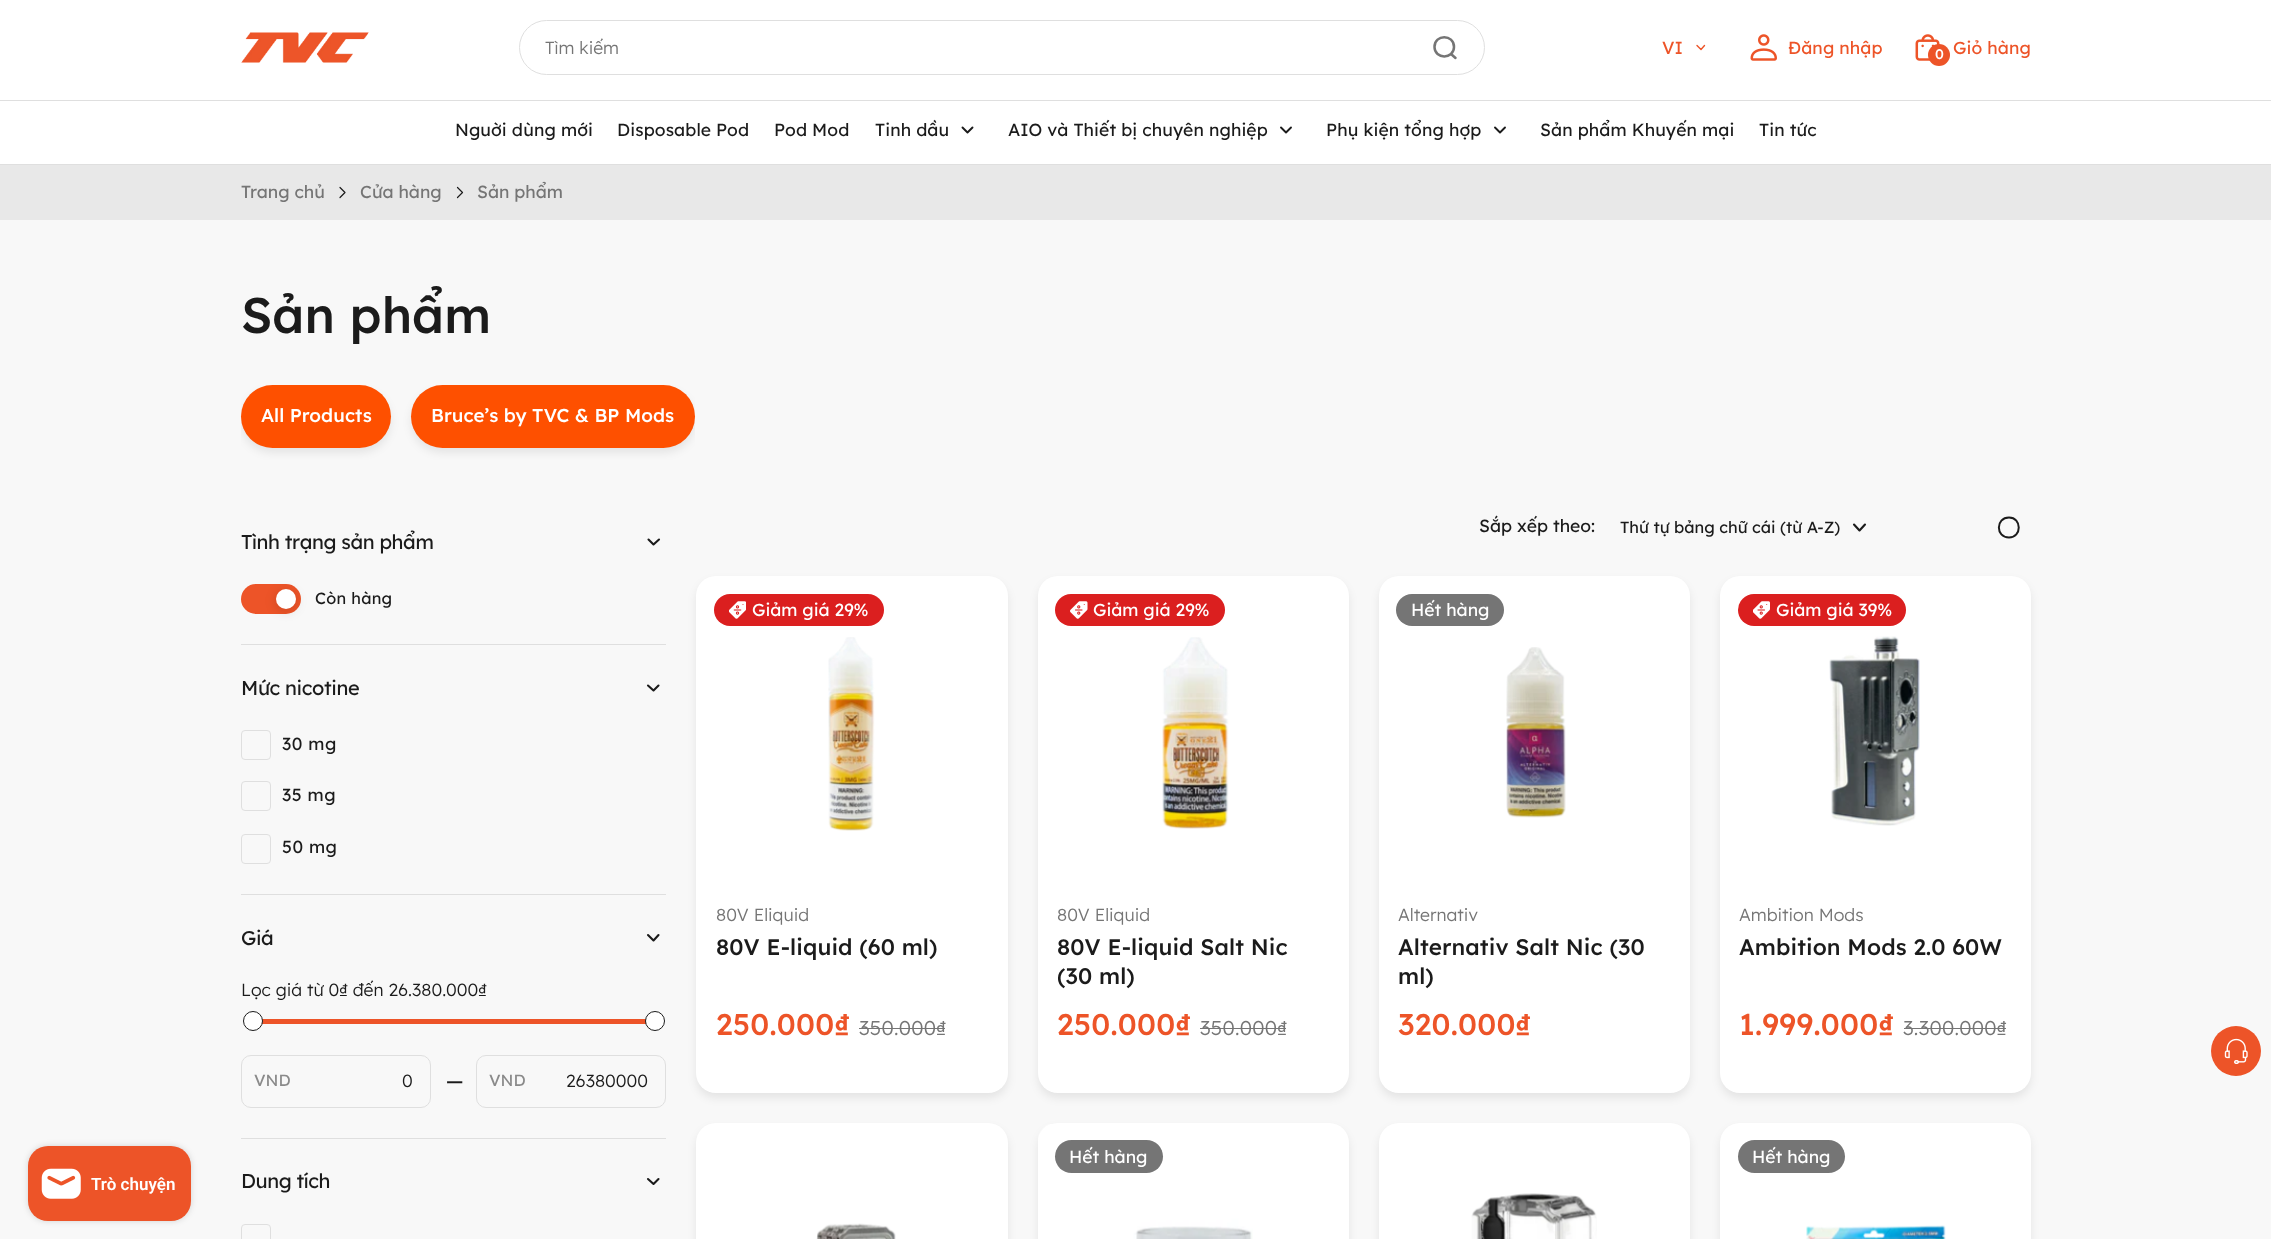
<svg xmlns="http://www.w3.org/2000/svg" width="2271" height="1239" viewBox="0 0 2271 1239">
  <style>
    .t1 { font: 300 17.5px Lexend Deca; fill: #757575; }
    .t2 { font: 17.5px Lexend Deca; fill: #ed5428; }
    .t3 { font: 17.5px Lexend Deca; letter-spacing: 0.1px; fill: #ed5428; }
    .t4 { font: 500 14px Lexend Deca; fill: #fff; }
    .t5 { font: 17.5px Lexend Deca; letter-spacing: 0.1px; fill: #1b1b1b; }
    .t6 { font: 17.5px Lexend Deca; fill: #757575; }
    .t7 { font: 500 50px Lexend Deca; fill: #1b1b1b; }
    .t8 { font: 500 18.75px Lexend Deca; fill: #fff; }
    .t9 { font: 20px Lexend Deca; letter-spacing: -0.4px; fill: #1b1b1b; }
    .t10 { font: 16.25px Lexend Deca; letter-spacing: 0.25px; fill: #1b1b1b; }
    .t11 { font: 17.5px Lexend Deca; letter-spacing: 0.5px; fill: #1b1b1b; }
    .t12 { font: 300 17.5px Lexend Deca; fill: #1b1b1b; }
    .t13 { font: 16.25px Lexend Deca; fill: #8a8a8a; }
    .t14 { font: 20px Lexend Deca; fill: #1b1b1b; }
    .t15 { font: 17.5px Lexend Deca; fill: #1b1b1b; }
    .t16 { font: 16.25px Lexend Deca; fill: #1b1b1b; }
    .t17 { font: 17.5px Lexend Deca; fill: #fff; }
    .t18 { font: 500 22.5px Lexend Deca; letter-spacing: 0.1px; fill: #1b1b1b; }
    .t19 { font: 500 30px Lexend Deca; letter-spacing: 0.25px; fill: #ed5428; }
    .t20 { font: 300 20px Lexend Deca; letter-spacing: 0.25px; fill: #757575; }
    .t21 { font: 600 17px Roboto; fill: #fff; }
  </style>
  <defs>
    <clipPath id="clip1"><rect x="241" y="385" width="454" height="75"/></clipPath>
    <clipPath id="clip2"><rect x="1058" y="933" width="271" height="57"/></clipPath>
  </defs>
  <rect width="100%" height="100%" fill="#f8f8f8"/>
  <rect x="0" y="0" width="2271" height="164" fill="#fff"/>
  <image x="241" y="32" width="128" height="31" href="images/1.png"/>
  <rect x="519.5" y="20.5" width="965" height="54" rx="27" fill="none" stroke="#dfdfdf"/>
  <text x="545" y="54" class="t1">Tìm kiếm</text>
  <path d="M1451 54L1455.5 58M1454 47C1454 59.5 1434.5 59.5 1434.5 47C1434.5 34 1454 34 1454 47Z" fill="none" stroke="#757575" stroke-width="2.5" stroke-linecap="round"/>
  <text x="1662" y="54" class="t2">VI</text>
  <path d="M1704.5 45.5L1701 49.5L1697 45.5" fill="none" stroke="#ed5428" stroke-width="1.4" stroke-linecap="round" stroke-linejoin="round"/>
  <image x="1750" y="34" width="27" height="27" href="images/2.png"/>
  <text x="1788" y="54" class="t3">Đăng nhập</text>
  <image x="1915" y="34" width="25" height="27" href="images/3.png"/>
  <text x="1953" y="54" class="t3">Giỏ hàng</text>
  <circle cx="1939" cy="55" r="11" fill="#ed5428"/>
  <text x="1935" y="59" class="t4">0</text>
  <rect x="0" y="100" width="2271" height="1" fill="#dfdfdf"/>
  <text x="455" y="136" class="t5">Nguời dùng mới</text>
  <text x="617" y="136" class="t5">Disposable Pod</text>
  <text x="774" y="136" class="t5">Pod Mod</text>
  <text x="875" y="136" class="t5">Tinh dầu</text>
  <path d="M962.5 127.5L967.5 132.5L972.5 127.5" fill="none" stroke="#1b1b1b" stroke-width="1.9" stroke-linecap="round" stroke-linejoin="round"/>
  <text x="1008" y="136" class="t5">AIO và Thiết bị chuyên nghiệp</text>
  <path d="M1281 127.5L1286 132.5L1291 127.5" fill="none" stroke="#1b1b1b" stroke-width="1.9" stroke-linecap="round" stroke-linejoin="round"/>
  <text x="1326" y="136" class="t5">Phụ kiện tổng hợp</text>
  <path d="M1495 127.5L1500 132.5L1505 127.5" fill="none" stroke="#1b1b1b" stroke-width="1.9" stroke-linecap="round" stroke-linejoin="round"/>
  <text x="1540" y="136" class="t5">Sản phẩm Khuyến mại</text>
  <text x="1759" y="136" class="t5">Tin tức</text>
  <rect x="0" y="164" width="2271" height="1" fill="#dfdfdf"/>
  <rect x="0" y="165" width="2271" height="55" fill="#e8e8e8"/>
  <text x="241" y="198" class="t6">Trang chủ</text>
  <path d="M340 187.5L345 192.5L340 197.5" fill="none" stroke="#1b1b1b" stroke-width="1.2" stroke-linecap="round" stroke-linejoin="round"/>
  <text x="360" y="198" class="t6">Cửa hàng</text>
  <path d="M457.5 187.5L462.5 192.5L457.5 197.5" fill="none" stroke="#1b1b1b" stroke-width="1.2" stroke-linecap="round" stroke-linejoin="round"/>
  <text x="477" y="198" class="t6">Sản phẩm</text>
  <text x="241" y="333" class="t7">Sản phẩm</text>
  <g clip-path="url(#clip1)">
    <rect x="241" y="390" width="150" height="63" rx="31.5" fill="#00000014" filter="blur(4px)"/>
  </g>
  <rect x="241" y="385" width="150" height="63" rx="31.5" fill="#fe5000"/>
  <text x="261" y="422" class="t8">All Products</text>
  <g clip-path="url(#clip1)">
    <rect x="411" y="390" width="284" height="63" rx="31.5" fill="#00000014" filter="blur(4px)"/>
  </g>
  <rect x="411" y="385" width="284" height="63" rx="31.5" fill="#fe5000"/>
  <text x="431" y="422" class="t8">Bruce’s by TVC &amp; BP Mods</text>
  <rect x="241" y="644" width="425" height="1" fill="#dfdfdf"/>
  <text x="241" y="549" class="t9">Tình trạng sản phẩm</text>
  <path d="M648.5 539.5L653.5 544.5L659 539.5" fill="none" stroke="#1b1b1b" stroke-width="2.1" stroke-linecap="round" stroke-linejoin="round"/>
  <rect x="241" y="584" width="60" height="30" rx="15" fill="#ed5428"/>
  <rect x="276" y="591" width="20" height="20" rx="10" fill="#00000026" filter="blur(6px)"/>
  <circle cx="286" cy="599" r="10" fill="#fff"/>
  <text x="315" y="604" class="t10">Còn hàng</text>
  <rect x="241" y="894" width="425" height="1" fill="#dfdfdf"/>
  <text x="241" y="695" class="t9">Mức nicotine</text>
  <path d="M648 685.5L653.5 690.5L658.5 685.5" fill="none" stroke="#1b1b1b" stroke-width="2.1" stroke-linecap="round" stroke-linejoin="round"/>
  <rect x="241.5" y="730.5" width="29" height="29" rx="3.5" fill="none" stroke="#dfdfdf"/>
  <text x="282" y="750" class="t11">30 mg</text>
  <rect x="241.5" y="781.5" width="29" height="29" rx="3.5" fill="none" stroke="#dfdfdf"/>
  <text x="282" y="801" class="t11">35 mg</text>
  <rect x="241.5" y="834.5" width="29" height="29" rx="3.5" fill="none" stroke="#dfdfdf"/>
  <text x="282" y="853" class="t11">50 mg</text>
  <rect x="241" y="1138" width="425" height="1" fill="#dfdfdf"/>
  <text x="241" y="945" class="t9">Giá</text>
  <path d="M648 935L653.5 940.5L658.5 935" fill="none" stroke="#1b1b1b" stroke-width="2.1" stroke-linecap="round" stroke-linejoin="round"/>
  <text x="241" y="996" class="t12">Lọc giá từ 0₫ đến 26.380.000₫</text>
  <rect x="262" y="1019" width="384" height="5" fill="#ed5428"/>
  <circle cx="253" cy="1021" r="9.5" fill="#fff" stroke="#1b1b1b"/>
  <circle cx="655" cy="1021" r="9.5" fill="#fff" stroke="#1b1b1b"/>
  <rect x="241.5" y="1055.5" width="189" height="52" rx="9.5" fill="none" stroke="#dfdfdf"/>
  <text x="254" y="1086" class="t13">VND</text>
  <text x="402" y="1087" class="t12">0</text>
  <text x="446" y="1088" class="t14">—</text>
  <rect x="476.5" y="1055.5" width="189" height="52" rx="9.5" fill="none" stroke="#dfdfdf"/>
  <text x="489" y="1086" class="t13">VND</text>
  <text x="566" y="1087" class="t12">26380000</text>
  <text x="241" y="1188" class="t9">Dung tích</text>
  <path d="M648 1179L653.5 1184L658.5 1179" fill="none" stroke="#1b1b1b" stroke-width="2.1" stroke-linecap="round" stroke-linejoin="round"/>
  <rect x="241.5" y="1224.5" width="29" height="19" rx="3.5" fill="none" stroke="#dfdfdf"/>
  <text x="1479" y="532" class="t15">Sắp xếp theo:</text>
  <text x="1620" y="533" class="t16">Thứ tự bảng chữ cái (từ A-Z)</text>
  <path d="M1865 524.5L1859.5 530.5L1854 524.5" fill="none" stroke="#1b1b1b" stroke-width="2.1" stroke-linecap="round" stroke-linejoin="round"/>
  <path d="M2009 517.5C2022 517.5 2022 537.5 2009 537.5C1995.5 537.5 1995.5 517.5 2009 517.5" fill="none" stroke="#1b1b1b" stroke-width="2"/>
  <rect x="696" y="581" width="312" height="517" rx="20" fill="#00000014" filter="blur(4px)"/>
  <rect x="696" y="576" width="312" height="517" rx="20" fill="#fff"/>
  <rect x="714" y="594" width="170" height="32" rx="16" fill="#db1f1f"/>
  <image x="729" y="601" width="17" height="18" href="images/4.png"/>
  <text x="752" y="616" class="t17">Giảm giá 29%</text>
  <image x="828" y="637" width="47" height="194" href="images/5.png"/>
  <text x="716" y="921" class="t1">80V Eliquid</text>
  <text x="716" y="955" class="t18">80V E-liquid (60 ml)</text>
  <text x="716" y="1035" class="t19">250.000₫</text>
  <text x="859" y="1035" class="t20">350.000₫</text>
  <rect x="859" y="1028" width="86" height="1" fill="#757575"/>
  <rect x="1038" y="581" width="311" height="517" rx="20" fill="#00000014" filter="blur(4px)"/>
  <rect x="1038" y="576" width="311" height="517" rx="20" fill="#fff"/>
  <rect x="1055" y="594" width="170" height="32" rx="16" fill="#db1f1f"/>
  <image x="1070" y="601" width="18" height="18" href="images/6.png"/>
  <text x="1093" y="616" class="t17">Giảm giá 29%</text>
  <image x="1162" y="637" width="67" height="192" href="images/7.png"/>
  <text x="1057" y="921" class="t1">80V Eliquid</text>
  <text x="1057" y="955" class="t18">80V E-liquid Salt Nic</text>
  <g clip-path="url(#clip2)">
    <text x="1057" y="984" class="t18">(30 ml)</text>
  </g>
  <text x="1057" y="1035" class="t19">250.000₫</text>
  <text x="1200" y="1035" class="t20">350.000₫</text>
  <rect x="1200" y="1028" width="86" height="1" fill="#757575"/>
  <rect x="1379" y="581" width="311" height="517" rx="20" fill="#00000014" filter="blur(4px)"/>
  <rect x="1379" y="576" width="311" height="517" rx="20" fill="#fff"/>
  <rect x="1396" y="594" width="108" height="32" rx="16" fill="#757575"/>
  <text x="1411" y="616" class="t17">Hết hàng</text>
  <image x="1506" y="647" width="60" height="171" href="images/8.png"/>
  <text x="1398" y="921" class="t1">Alternativ</text>
  <text x="1398" y="955" class="t18">Alternativ Salt Nic (30</text>
  <text x="1398" y="984" class="t18">ml)</text>
  <text x="1398" y="1035" class="t19">320.000₫</text>
  <rect x="1720" y="581" width="311" height="517" rx="20" fill="#00000014" filter="blur(4px)"/>
  <rect x="1720" y="576" width="311" height="517" rx="20" fill="#fff"/>
  <rect x="1738" y="594" width="168" height="32" rx="16" fill="#db1f1f"/>
  <image x="1753" y="601" width="17" height="18" href="images/9.png"/>
  <text x="1776" y="616" class="t17">Giảm giá 39%</text>
  <image x="1829" y="636" width="91" height="190" href="images/10.png"/>
  <text x="1739" y="921" class="t1">Ambition Mods</text>
  <text x="1739" y="955" class="t18">Ambition Mods 2.0 60W</text>
  <text x="1739" y="1035" class="t19">1.999.000₫</text>
  <text x="1903" y="1035" class="t20">3.300.000₫</text>
  <rect x="1904" y="1028" width="102" height="1" fill="#757575"/>
  <rect x="696" y="1128" width="312" height="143" rx="20" fill="#00000014" filter="blur(4px)"/>
  <rect x="696" y="1123" width="312" height="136" rx="20" fill="#fff"/>
  <image x="816" y="1223" width="80" height="16" href="images/11.png"/>
  <rect x="1038" y="1128" width="311" height="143" rx="20" fill="#00000014" filter="blur(4px)"/>
  <rect x="1038" y="1123" width="311" height="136" rx="20" fill="#fff"/>
  <image x="1038" y="1124" width="215" height="115" href="images/12.png"/>
  <rect x="1055" y="1140" width="108" height="33" rx="16.5" fill="#757575"/>
  <text x="1069" y="1163" class="t17">Hết hàng</text>
  <rect x="1379" y="1128" width="311" height="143" rx="20" fill="#00000014" filter="blur(4px)"/>
  <rect x="1379" y="1123" width="311" height="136" rx="20" fill="#fff"/>
  <image x="1471" y="1193" width="126" height="46" href="images/13.png"/>
  <rect x="1720" y="1128" width="311" height="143" rx="20" fill="#00000014" filter="blur(4px)"/>
  <rect x="1720" y="1123" width="311" height="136" rx="20" fill="#fff"/>
  <rect x="1738" y="1140" width="107" height="33" rx="16.5" fill="#757575"/>
  <text x="1752" y="1163" class="t17">Hết hàng</text>
  <image x="1806" y="1225" width="140" height="14" href="images/14.png"/>
  <circle cx="2236" cy="1051" r="25" fill="#ed5428"/>
  <image x="2224" y="1038" width="24" height="26" href="images/15.png"/>
  <rect x="28" y="1146" width="163" height="75" rx="20" fill="#00000026" filter="blur(3px)"/>
  <rect x="28" y="1146" width="163" height="75" rx="20" fill="#ed5428"/>
  <image x="41" y="1168" width="40" height="31" href="images/16.png"/>
  <text x="91" y="1190" class="t21">Trò chuyện</text>
</svg>
